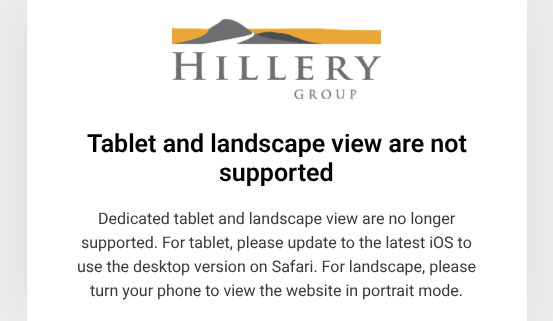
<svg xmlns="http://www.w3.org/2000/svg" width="553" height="321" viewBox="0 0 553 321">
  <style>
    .t1 { font: 600 25px Roboto; fill: #000; }
    .t2 { font: 16px Roboto; fill: #3a3a3a; }
  </style>
  <rect width="100%" height="100%" fill="#f2f2f2"/>
  <rect x="27" y="-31" width="500" height="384" rx="20" fill="#0000001a" filter="blur(50px)"/>
  <rect x="27" y="0" width="500" height="321" fill="#fff"/>
  <image x="172" y="18" width="209" height="81" href="images/1.png"/>
  <text x="87" y="152" class="t1">Tablet and landscape view are not</text>
  <text x="219" y="181" class="t1">supported</text>
  <text x="98" y="224" class="t2">Dedicated tablet and landscape view are no longer</text>
  <text x="81" y="248" class="t2">supported. For tablet, please update to the latest iOS to</text>
  <text x="77" y="272" class="t2">use the desktop version on Safari. For landscape, please</text>
  <text x="90" y="296" class="t2">turn your phone to view the website in portrait mode.</text>
</svg>
